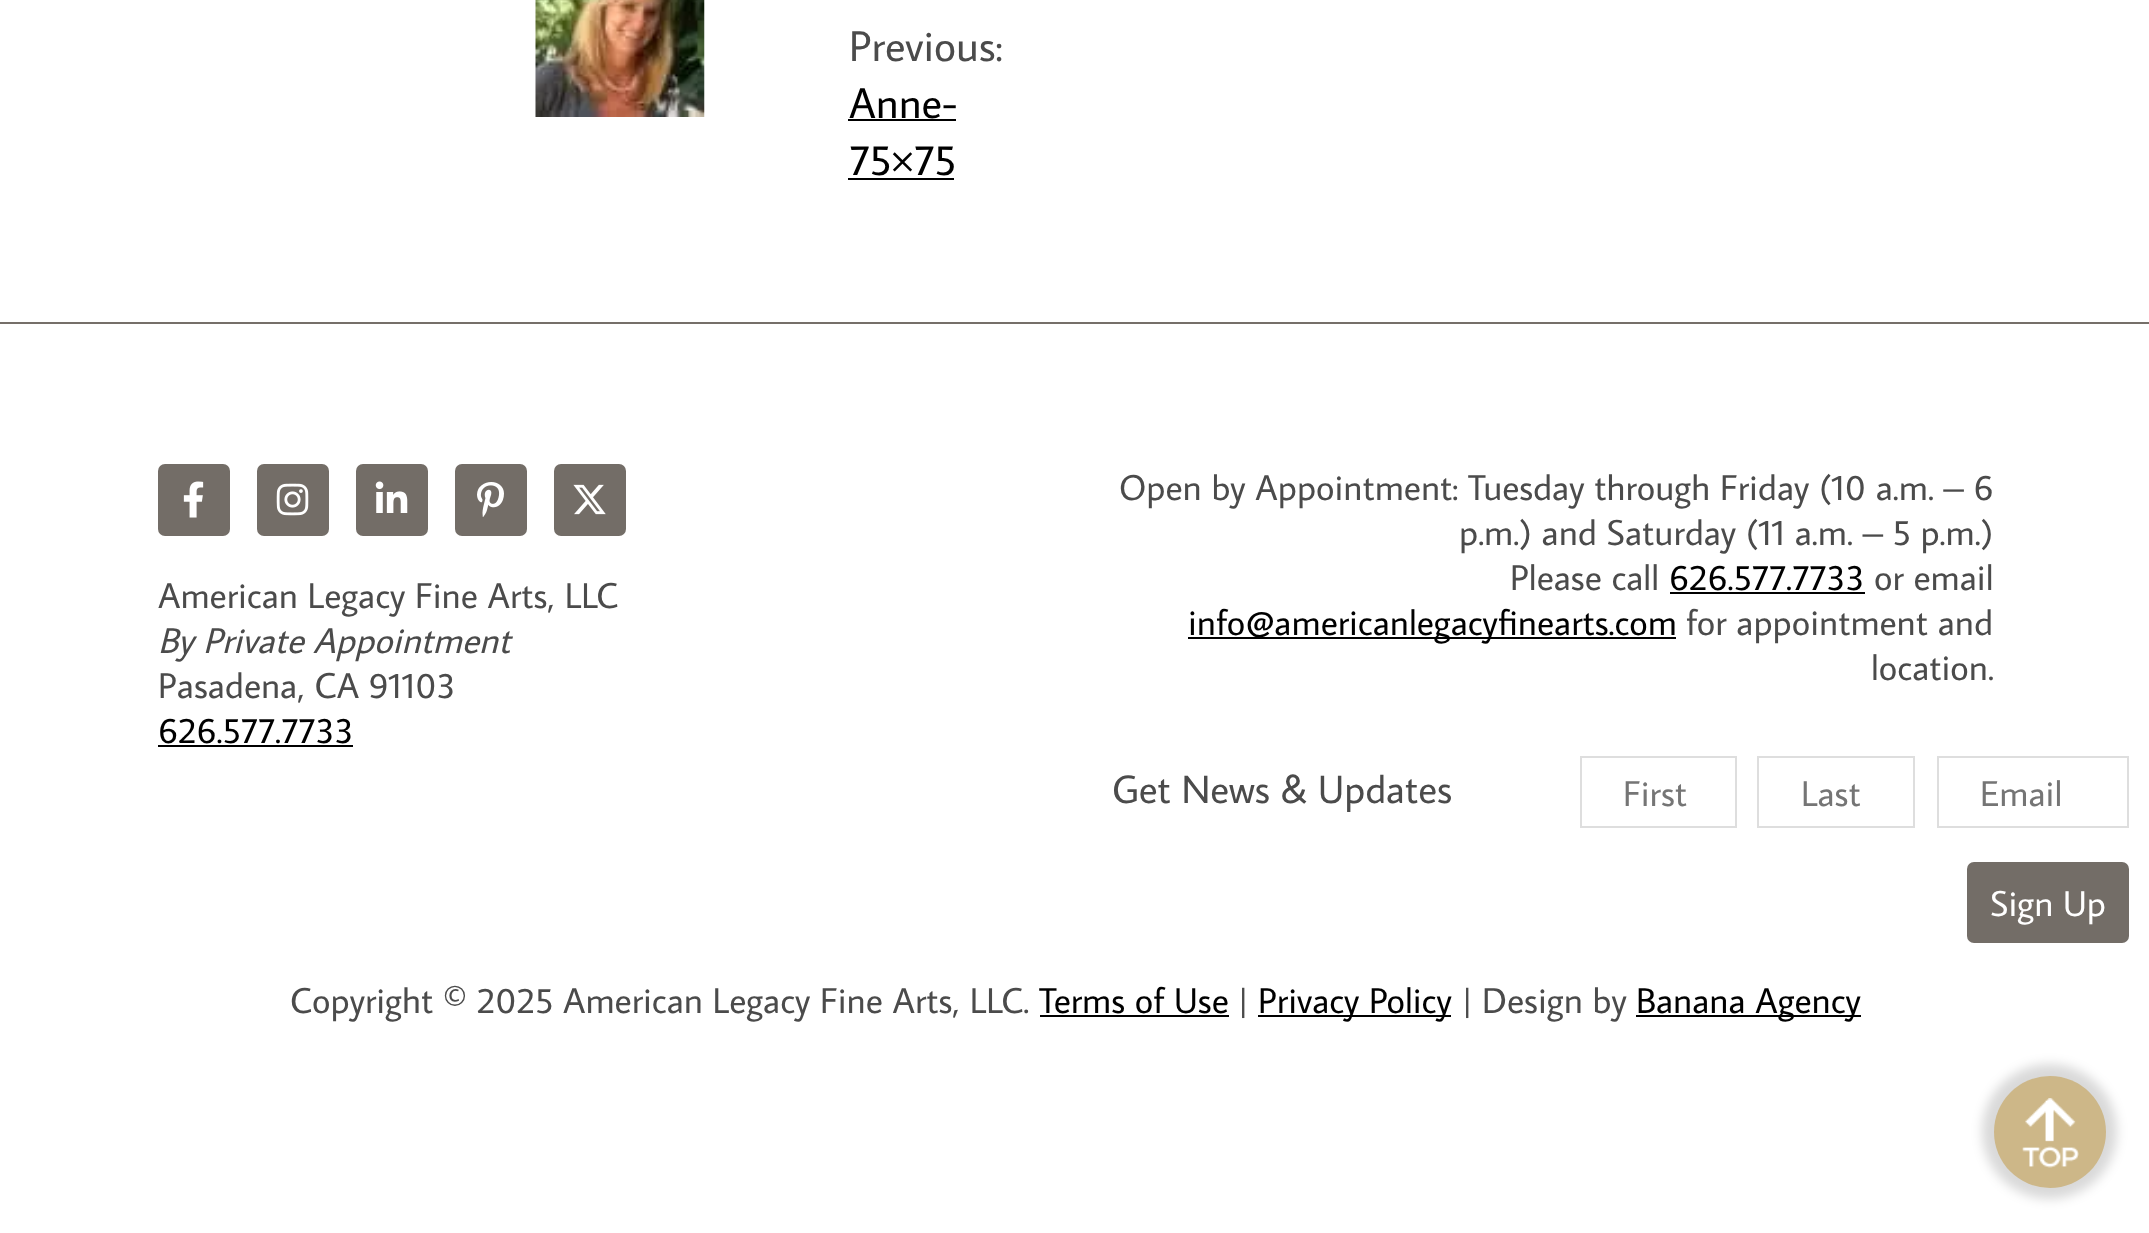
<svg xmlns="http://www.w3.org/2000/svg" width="2149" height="1233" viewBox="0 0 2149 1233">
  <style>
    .t1 { font: 43px Average Sans; fill: #4b4b4b; }
    .t2 { font: 43px Average Sans; fill: #000; }
    .t3 { font: 36px Average Sans; fill: #4b4b4b; }
    .t4 { font: italic 36px Average Sans; fill: #4b4b4b; }
    .t5 { font: 36px Average Sans; fill: #000; }
    .t6 { font: 39.5px Average Sans; fill: #4b4b4b; }
    .t7 { font: 36px Average Sans; fill: #757575; }
    .t8 { font: 36px Average Sans; fill: #fff; }
  </style>
  <rect width="100%" height="100%" fill="#fff"/>
  <image x="535" y="0" width="170" height="117" href="images/1.png"/>
  <text x="849" y="61" class="t1">Previous:</text>
  <text x="849" y="118" class="t2">Anne-</text>
  <rect x="848" y="119" width="108" height="2" fill="#000"/>
  <text x="849" y="175" class="t2">75×75</text>
  <rect x="848" y="178" width="106" height="2" fill="#000"/>
  <rect x="0" y="322" width="2149" height="2" fill="#756f69"/>
  <rect x="158" y="464" width="72" height="72" rx="7" fill="#736d67"/>
  <image x="183" y="481" width="21" height="37" href="images/2.png"/>
  <rect x="257" y="464" width="72" height="72" rx="7" fill="#736d67"/>
  <image x="276" y="483" width="33" height="33" href="images/3.png"/>
  <rect x="356" y="464" width="72" height="72" rx="7" fill="#736d67"/>
  <image x="375" y="481" width="33" height="32" href="images/4.png"/>
  <rect x="455" y="464" width="72" height="72" rx="7" fill="#736d67"/>
  <image x="477" y="482" width="27" height="35" href="images/5.png"/>
  <rect x="554" y="464" width="72" height="72" rx="7" fill="#736d67"/>
  <image x="573" y="484" width="33" height="31" href="images/6.png"/>
  <text x="158" y="608" class="t3">American Legacy Fine Arts, LLC</text>
  <text x="158" y="653" class="t4">By Private Appointment</text>
  <text x="158" y="698" class="t3">Pasadena, CA 91103</text>
  <text x="158" y="743" class="t5">626.577.7733</text>
  <rect x="158" y="745" width="195" height="2" fill="#000"/>
  <text x="1119" y="500" class="t3">Open by Appointment: Tuesday through Friday (10 a.m. – 6</text>
  <text x="1459" y="545" class="t3">p.m.) and Saturday (11 a.m. – 5 p.m.)</text>
  <text x="1510" y="590" class="t3">Please call</text>
  <text x="1669" y="590" class="t5">626.577.7733</text>
  <rect x="1670" y="592" width="195" height="2" fill="#000"/>
  <text x="1874" y="590" class="t3">or email</text>
  <rect x="1188" y="637" width="488" height="2" fill="#000"/>
  <text x="1188" y="635" class="t5">info@americanlegacyfinearts.com</text>
  <text x="1686" y="635" class="t3">for appointment and</text>
  <text x="1871" y="680" class="t3">location.</text>
  <text x="1112" y="803" class="t6">Get News &amp; Updates</text>
  <rect x="1581" y="757" width="155" height="70" fill="none" stroke="#dedede" stroke-width="2"/>
  <text x="1623" y="806" class="t7">First</text>
  <rect x="1758" y="757" width="156" height="70" fill="none" stroke="#dedede" stroke-width="2"/>
  <text x="1801" y="806" class="t7">Last</text>
  <rect x="1938" y="757" width="190" height="70" fill="none" stroke="#dedede" stroke-width="2"/>
  <text x="1980" y="806" class="t7">Email</text>
  <rect x="1967" y="862" width="162" height="81" rx="7" fill="#736d67"/>
  <text x="1990" y="916" class="t8">Sign Up</text>
  <text x="290" y="1013" class="t3">Copyright © 2025 American Legacy Fine Arts, LLC.</text>
  <text x="1039" y="1013" class="t5">Terms of Use</text>
  <rect x="1040" y="1015" width="189" height="2" fill="#000"/>
  <text x="1238" y="1013" class="t3">|</text>
  <rect x="1258" y="1015" width="193" height="2" fill="#000"/>
  <text x="1258" y="1013" class="t5">Privacy Policy</text>
  <text x="1462" y="1013" class="t3">| Design by</text>
  <rect x="1636" y="1015" width="225" height="2" fill="#000"/>
  <text x="1636" y="1013" class="t5">Banana Agency</text>
  <rect x="1982" y="1064" width="135" height="135" rx="67.5" fill="#00000026" filter="blur(5.5px)"/>
  <circle cx="2050" cy="1132" r="56" fill="#cdb788"/>
  <image x="2022" y="1098" width="57" height="70" href="images/7.png"/>
</svg>
